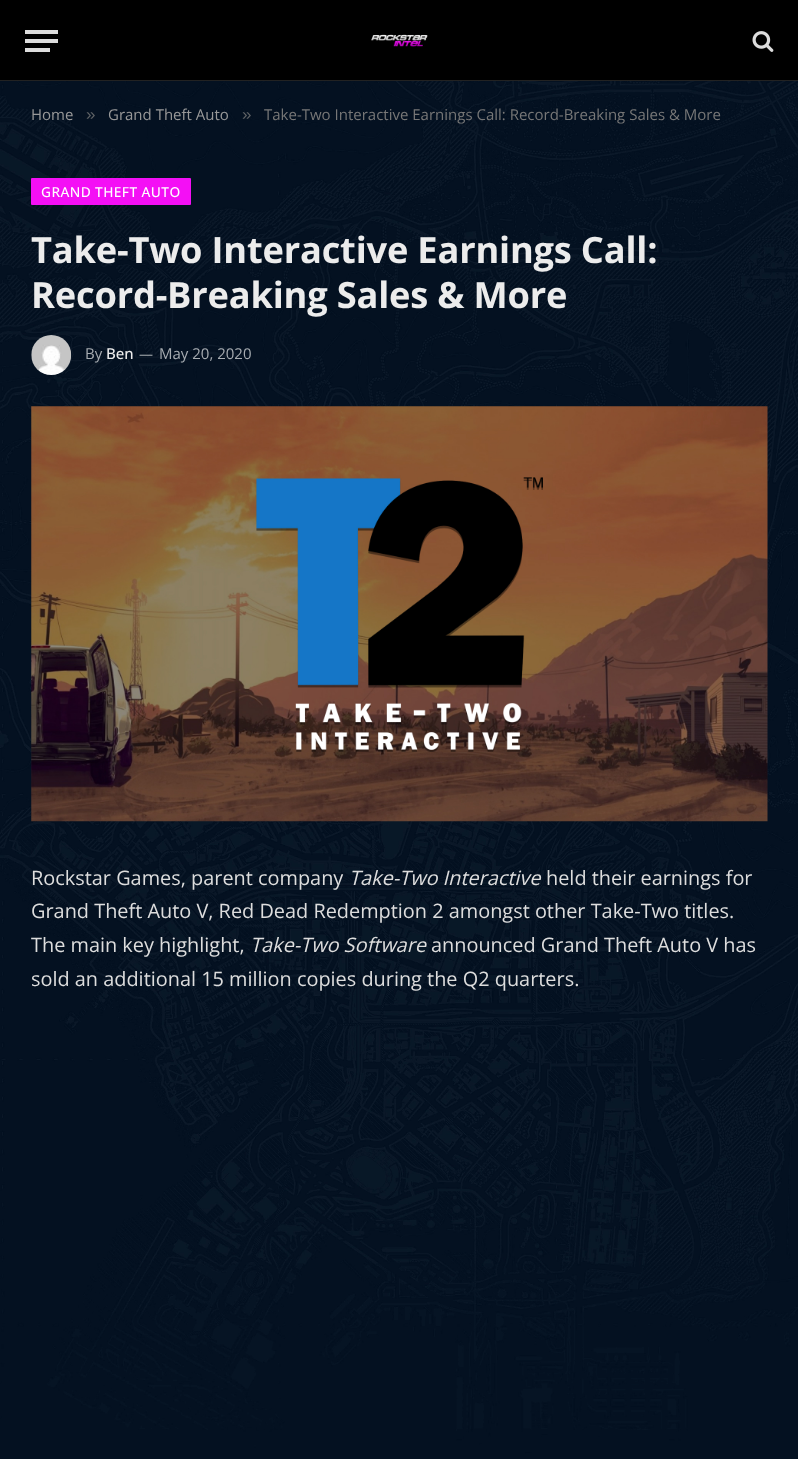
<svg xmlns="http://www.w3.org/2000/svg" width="798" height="1459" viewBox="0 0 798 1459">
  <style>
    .t1 { font: 15px Open Sans; fill: #999; }
    .t2 { font: 17px Liberation Sans; fill: #606366; }
    .t3 { font: 15px Open Sans; fill: #777; }
    .t4 { font: 500 13.75px Open Sans; letter-spacing: 0.4px; fill: #fff; }
    .t5 { font: bold 36.25px Open Sans; letter-spacing: -0.2px; fill: #ececec; }
    .t6 { font: 15px Open Sans; fill: #a7acb1; }
    .t7 { font: 500 15px Open Sans; fill: #ececec; }
    .t8 { font: 14px Open Sans; fill: #a7acb1; }
    .t9 { font: 19.9px Open Sans; fill: #ddd; }
    .t10 { font: italic 19.9px Open Sans; fill: #ddd; }
  </style>
  <rect width="100%" height="100%" fill="#fff"/>
  <image x="0" y="81" width="798" height="1378" href="images/1.png"/>
  <rect x="0" y="0" width="798" height="80" fill="#000"/>
  <rect x="0" y="80" width="798" height="1" fill="#222"/>
  <rect x="25" y="48" width="25" height="4" fill="#ddd"/>
  <rect x="25" y="30" width="33" height="4" fill="#ddd"/>
  <rect x="25" y="39" width="33" height="4" fill="#ddd"/>
  <image x="371" y="34" width="57" height="13" href="images/2.png"/>
  <image x="752" y="31" width="22" height="21" href="images/3.png"/>
  <text x="31" y="120" class="t1">Home</text>
  <text x="86" y="120" class="t2">»</text>
  <text x="108" y="120" class="t1">Grand Theft Auto</text>
  <text x="242" y="120" class="t2">»</text>
  <text x="264" y="120" class="t3">Take-Two Interactive Earnings Call: Record-Breaking Sales &amp; More</text>
  <rect x="31" y="178" width="160" height="27" rx="1" fill="#f40ff5"/>
  <text x="41" y="197" class="t4">GRAND THEFT AUTO</text>
  <text x="31" y="263" class="t5">Take-Two Interactive Earnings Call:</text>
  <text x="31" y="308" class="t5">Record-Breaking Sales &amp; More</text>
  <image x="31" y="335" width="41" height="40" href="images/4.png"/>
  <text x="85" y="359" class="t6">By</text>
  <text x="106" y="359" class="t7">Ben</text>
  <text x="139" y="359" class="t8">—</text>
  <text x="159" y="359" class="t6">May 20, 2020</text>
  <image x="31" y="406" width="737" height="416" href="images/5.png"/>
  <text x="31" y="885" class="t9">Rockstar Games, parent company</text>
  <text x="349" y="885" class="t10">Take-Two Interactive</text>
  <text x="546" y="885" class="t9">held their earnings for</text>
  <text x="31" y="918" class="t9">Grand Theft Auto V, Red Dead Redemption 2 amongst other Take-Two titles.</text>
  <text x="31" y="952" class="t9">The main key highlight,</text>
  <text x="250" y="952" class="t10">Take-Two Software</text>
  <text x="431" y="952" class="t9">announced Grand Theft Auto V has</text>
  <text x="31" y="986" class="t9">sold an additional 15 million copies during the Q2 quarters.</text>
</svg>
